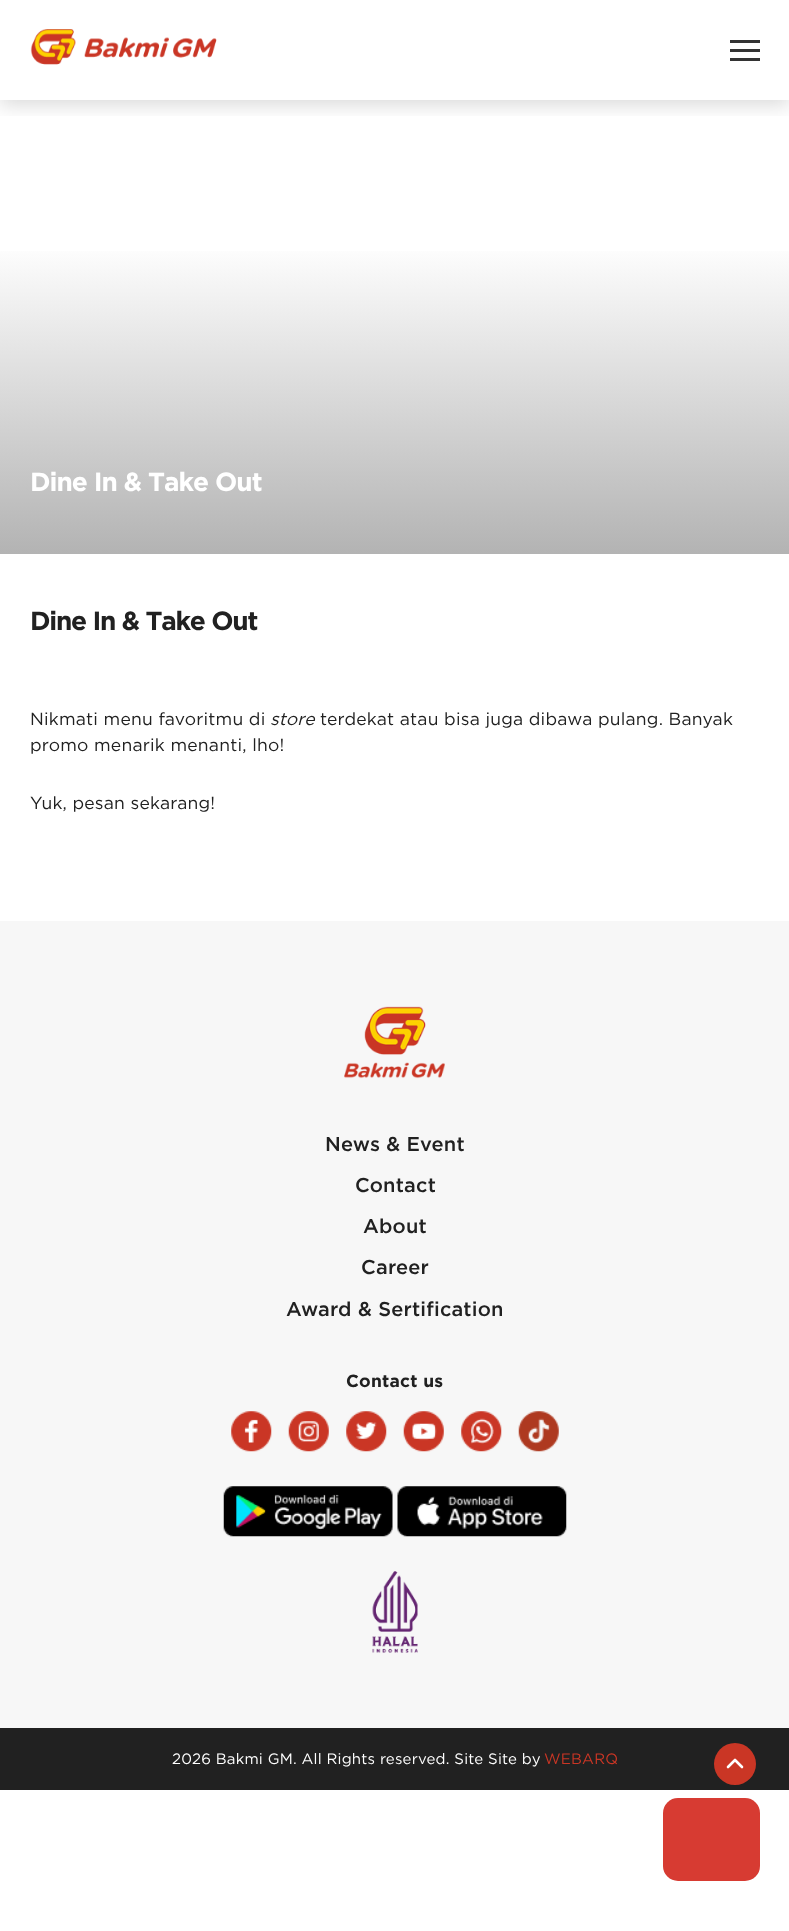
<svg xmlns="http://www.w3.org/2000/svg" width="789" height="1931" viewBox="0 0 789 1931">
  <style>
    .t1 { font: bold 26.25px Gotham; letter-spacing: -1px; fill: #fff; }
    .t2 { font: bold 26.25px Gotham; letter-spacing: -1.25px; fill: #212121; }
    .t3 { font: 17.5px Gotham; letter-spacing: 0.2px; fill: #212121; }
    .t4 { font: italic 17.5px Gotham; letter-spacing: 0.2px; fill: #212121; }
    .t5 { font: 500 20px Gotham; letter-spacing: 0.2px; fill: #212121; }
    .t6 { font: bold 17.5px Gotham; letter-spacing: 0.2px; fill: #212121; }
    .t7 { font: 15px Gotham; letter-spacing: 0.2px; fill: #fff; }
    .t8 { font: 15px Gotham; letter-spacing: 0.2px; fill: #ca3625; }
  </style>
  <defs>
    <clipPath id="clip1"><rect x="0" y="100" width="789" height="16"/></clipPath>
    <linearGradient id="g1" gradientUnits="userSpaceOnUse" x1="395" y1="241" x2="395" y2="554"><stop offset="0" stop-color="#fff"/><stop offset="1" stop-color="#b3b3b3"/></linearGradient>
  </defs>
  <rect width="100%" height="100%" fill="#fff"/>
  <g clip-path="url(#clip1)">
    <rect x="0" y="5" width="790" height="100" fill="#00000026" filter="blur(10px)"/>
  </g>
  <image x="30" y="29" width="187" height="36" href="images/1.png"/>
  <rect x="730" y="40" width="30" height="3" fill="#333"/>
  <rect x="730" y="49" width="30" height="3" fill="#333"/>
  <rect x="730" y="58" width="30" height="3" fill="#333"/>
  <rect x="0" y="1728" width="789" height="62" fill="#212121"/>
  <circle cx="735" cy="1764" r="21" fill="#ca3625"/>
  <path d="M728 1767L735 1760L742 1767" fill="none" stroke="#fff" stroke-width="2.6" stroke-linecap="round" stroke-linejoin="round"/>
  <rect x="663" y="1798" width="97" height="83" rx="15" fill="#d73b32"/>
  <rect x="0" y="251" width="789" height="303" fill="url(#g1)"/>
  <text x="30" y="491" class="t1">Dine In &amp; Take Out</text>
  <text x="30" y="630" class="t2">Dine In &amp; Take Out</text>
  <text x="30" y="725" class="t3">Nikmati menu favoritmu di</text>
  <text x="270" y="725" class="t4">store</text>
  <text x="320" y="725" class="t3">terdekat atau bisa juga dibawa pulang. Banyak</text>
  <text x="30" y="751" class="t3">promo menarik menanti, lho!</text>
  <text x="30" y="809" class="t3">Yuk, pesan sekarang!</text>
  <rect x="0" y="921" width="789" height="807" fill="#f7f7f7"/>
  <image x="344" y="1006" width="101" height="73" href="images/2.png"/>
  <text x="325" y="1151" class="t5">News &amp; Event</text>
  <text x="355" y="1192" class="t5">Contact</text>
  <text x="363" y="1233" class="t5">About</text>
  <text x="361" y="1274" class="t5">Career</text>
  <text x="286" y="1316" class="t5">Award &amp; Sertification</text>
  <text x="346" y="1387" class="t6">Contact us</text>
  <image x="231" y="1411" width="41" height="41" href="images/3.png"/>
  <image x="288" y="1411" width="41" height="41" href="images/4.png"/>
  <image x="346" y="1411" width="41" height="41" href="images/5.png"/>
  <image x="403" y="1411" width="41" height="41" href="images/6.png"/>
  <image x="461" y="1411" width="41" height="41" href="images/7.png"/>
  <image x="518" y="1411" width="41" height="41" href="images/8.png"/>
  <image x="223" y="1486" width="170" height="51" href="images/9.png"/>
  <image x="397" y="1486" width="170" height="51" href="images/10.png"/>
  <image x="372" y="1571" width="46" height="82" href="images/11.png"/>
  <text x="172" y="1764" class="t7">2026 Bakmi GM. All Rights reserved. Site Site by</text>
  <text x="544" y="1764" class="t8">WEBARQ</text>
</svg>
